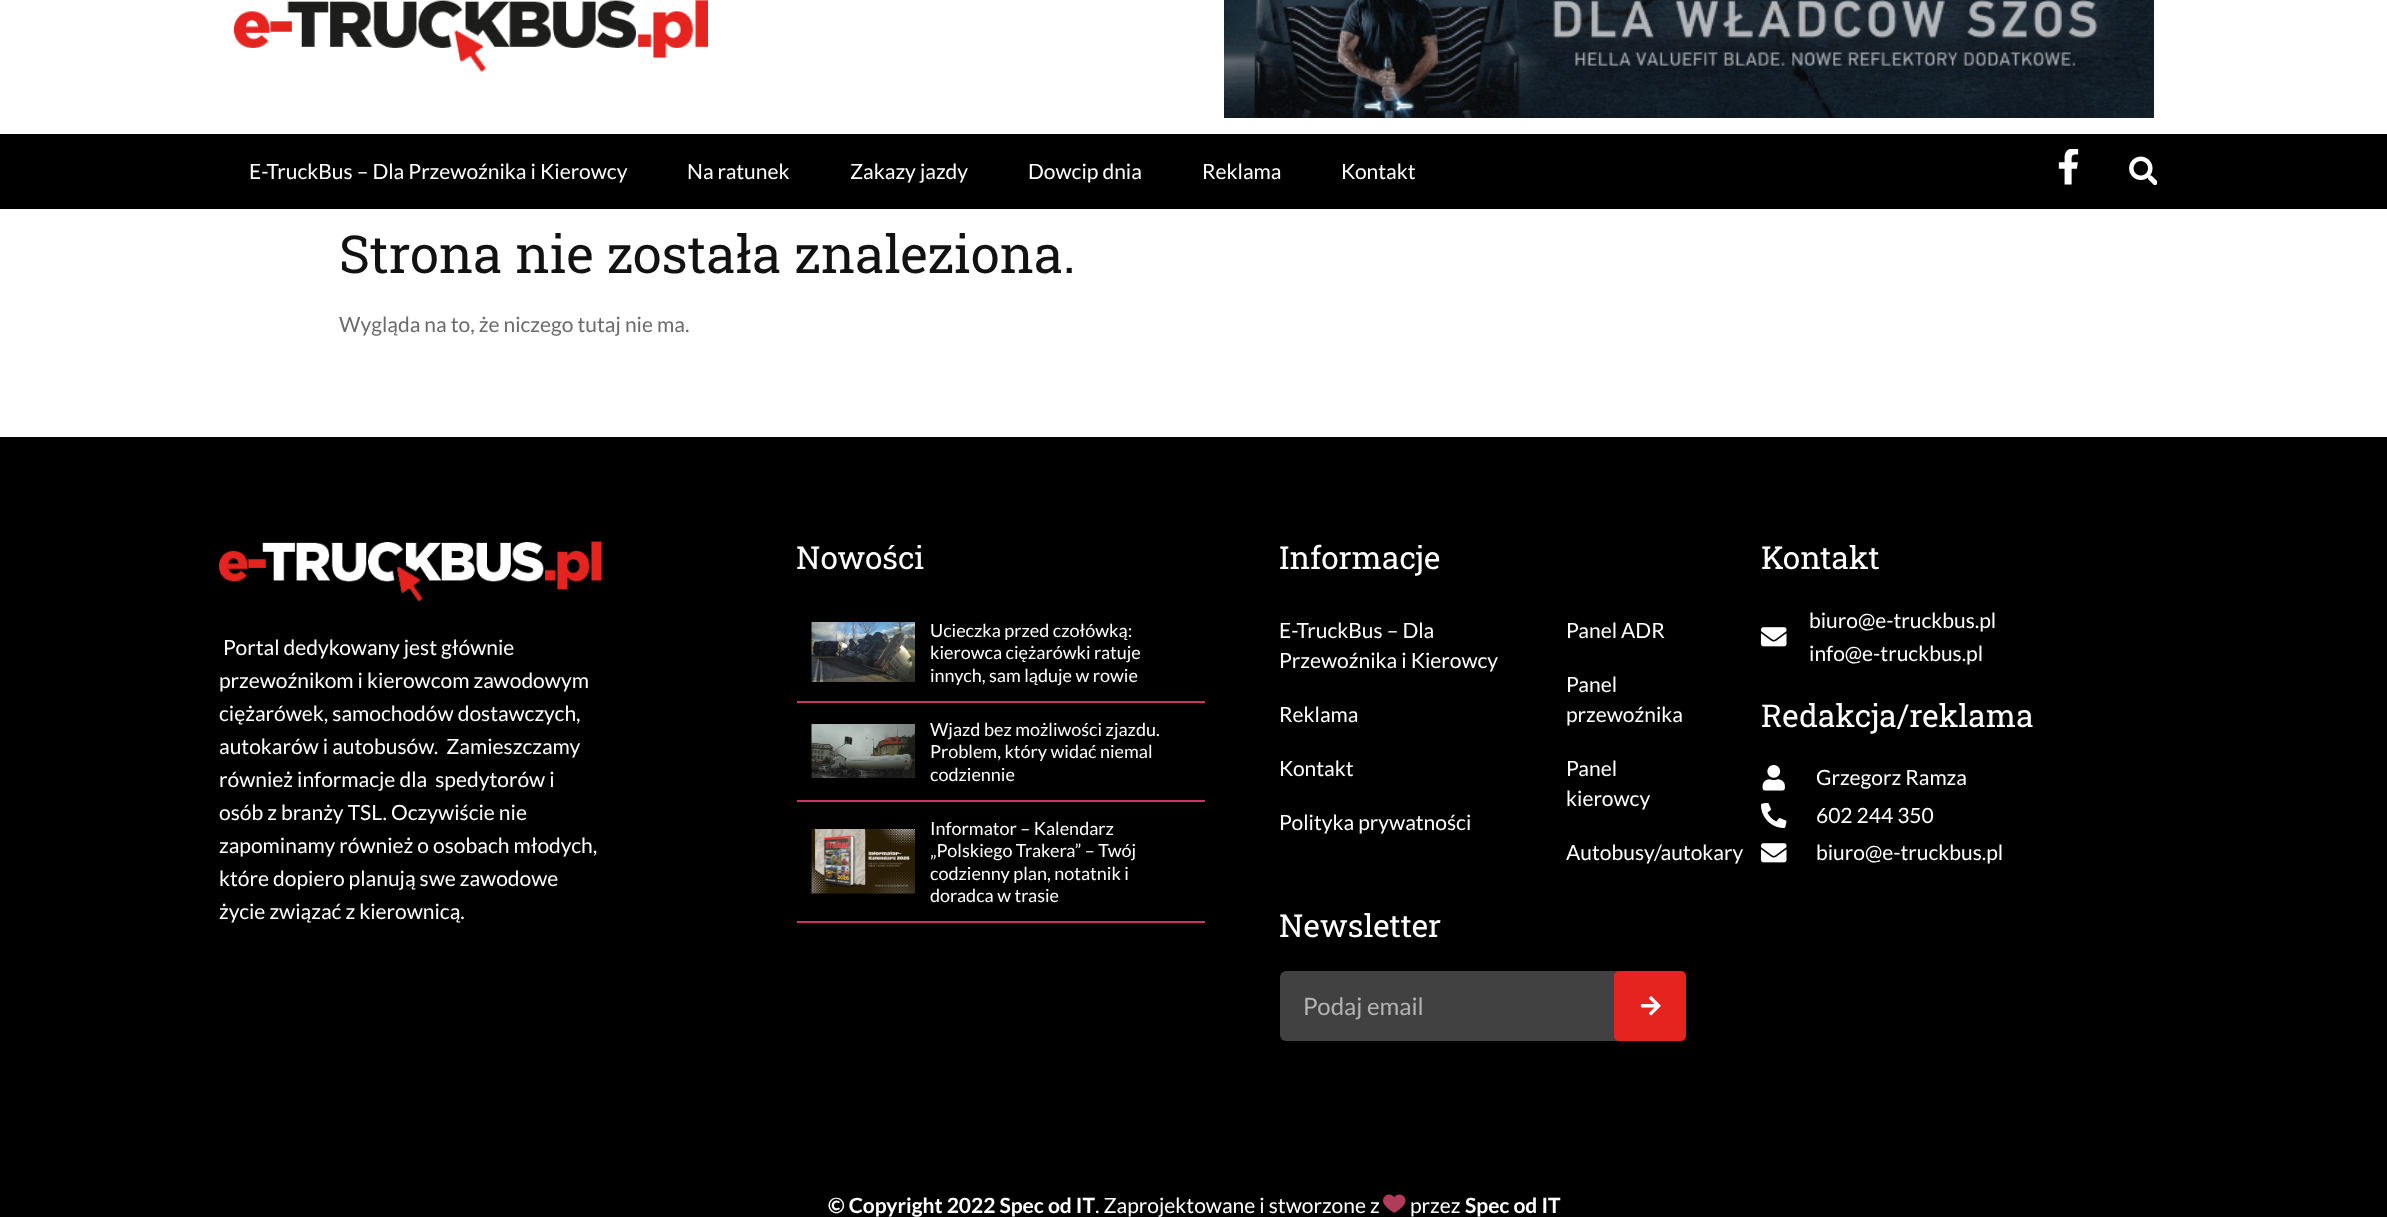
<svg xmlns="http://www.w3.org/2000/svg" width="2387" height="1217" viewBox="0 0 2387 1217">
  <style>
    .t1 { font: 21px Lato; fill: #fff; }
    .t2 { font: 52.5px Roboto Slab; fill: #121212; }
    .t3 { font: 21px Lato; fill: #6c6b6b; }
    .t4 { font: 31.5px Roboto Slab; fill: #fff; }
    .t5 { font: 18px Lato; fill: #fff; }
    .t6 { font: 24px Lato; fill: #b3b3b3; }
    .t7 { font: bold 21px Lato; fill: #fff; }
  </style>
  <rect width="100%" height="100%" fill="#fff"/>
  <image x="234" y="0" width="474" height="72" href="images/1.png"/>
  <image x="1224" y="0" width="930" height="118" href="images/2.png"/>
  <rect x="0" y="134" width="2387" height="75" fill="#000"/>
  <text x="249" y="179" class="t1">E-TruckBus – Dla Przewoźnika i Kierowcy</text>
  <text x="687" y="179" class="t1">Na ratunek</text>
  <text x="850" y="179" class="t1">Zakazy jazdy</text>
  <text x="1028" y="179" class="t1">Dowcip dnia</text>
  <text x="1202" y="179" class="t1">Reklama</text>
  <text x="1341" y="179" class="t1">Kontakt</text>
  <image x="2058" y="149" width="21" height="36" href="images/3.png"/>
  <image x="2129" y="156" width="28" height="29" href="images/4.png"/>
  <text x="339" y="273" class="t2">Strona nie została znaleziona.</text>
  <text x="339" y="332" class="t3">Wygląda na to, że niczego tutaj nie ma.</text>
  <rect x="0" y="437" width="2387" height="780" fill="#000"/>
  <image x="219" y="541" width="383" height="60" href="images/5.png"/>
  <text x="223" y="655" class="t1">Portal dedykowany jest głównie</text>
  <text x="219" y="688" class="t1">przewoźnikom i kierowcom zawodowym</text>
  <text x="219" y="721" class="t1">ciężarówek, samochodów dostawczych,</text>
  <text x="219" y="754" class="t1" xml:space="preserve">autokarów i autobusów.  Zamieszczamy</text>
  <text x="219" y="787" class="t1" xml:space="preserve">również informacje dla  spedytorów i</text>
  <text x="219" y="820" class="t1">osób z branży TSL. Oczywiście nie</text>
  <text x="219" y="853" class="t1">zapominamy również o osobach młodych,</text>
  <text x="219" y="886" class="t1">które dopiero planują swe zawodowe</text>
  <text x="219" y="919" class="t1">życie związać z kierownicą.</text>
  <text x="796" y="569" class="t4">Nowości</text>
  <rect x="797" y="701" width="408" height="2" fill="#c36"/>
  <image x="811" y="622" width="104" height="60" href="images/6.png"/>
  <text x="930" y="637" class="t5">Ucieczka przed czołówką:</text>
  <text x="930" y="659" class="t5">kierowca ciężarówki ratuje</text>
  <text x="930" y="682" class="t5">innych, sam ląduje w rowie</text>
  <rect x="797" y="800" width="408" height="2" fill="#c36"/>
  <image x="811" y="724" width="104" height="54" href="images/7.png"/>
  <text x="930" y="736" class="t5">Wjazd bez możliwości zjazdu.</text>
  <text x="930" y="758" class="t5">Problem, który widać niemal</text>
  <text x="930" y="781" class="t5">codziennie</text>
  <rect x="797" y="921" width="408" height="2" fill="#c36"/>
  <image x="811" y="829" width="104" height="65" href="images/8.png"/>
  <text x="930" y="835" class="t5">Informator – Kalendarz</text>
  <text x="930" y="857" class="t5">„Polskiego Trakera” – Twój</text>
  <text x="930" y="880" class="t5">codzienny plan, notatnik i</text>
  <text x="930" y="902" class="t5">doradca w trasie</text>
  <text x="1279" y="569" class="t4">Informacje</text>
  <text x="1279" y="638" class="t1">E-TruckBus – Dla</text>
  <text x="1279" y="668" class="t1">Przewoźnika i Kierowcy</text>
  <text x="1279" y="722" class="t1">Reklama</text>
  <text x="1279" y="776" class="t1">Kontakt</text>
  <text x="1279" y="830" class="t1">Polityka prywatności</text>
  <text x="1566" y="638" class="t1">Panel ADR</text>
  <text x="1566" y="692" class="t1">Panel</text>
  <text x="1566" y="722" class="t1">przewoźnika</text>
  <text x="1566" y="776" class="t1">Panel</text>
  <text x="1566" y="806" class="t1">kierowcy</text>
  <text x="1566" y="860" class="t1">Autobusy/autokary</text>
  <text x="1279" y="937" class="t4">Newsletter</text>
  <rect x="1280" y="971" width="346" height="70" rx="6" fill="#414141"/>
  <text x="1303" y="1015" class="t6">Podaj email</text>
  <rect x="1614" y="971" width="72" height="70" rx="5" fill="#e5231f"/>
  <image x="1640" y="996" width="21" height="20" href="images/9.png"/>
  <text x="1761" y="569" class="t4">Kontakt</text>
  <image x="1761" y="627" width="26" height="20" href="images/10.png"/>
  <text x="1809" y="628" class="t1">biuro@e-truckbus.pl</text>
  <text x="1809" y="661" class="t1">info@e-truckbus.pl</text>
  <text x="1761" y="727" class="t4">Redakcja/reklama</text>
  <image x="1762" y="765" width="23" height="26" href="images/11.png"/>
  <text x="1816" y="785" class="t1">Grzegorz Ramza</text>
  <image x="1761" y="803" width="26" height="25" href="images/12.png"/>
  <text x="1816" y="823" class="t1">602 244 350</text>
  <image x="1761" y="843" width="26" height="20" href="images/10.png"/>
  <text x="1816" y="860" class="t1">biuro@e-truckbus.pl</text>
  <text x="828" y="1213" class="t7">© Copyright 2022 Spec od IT</text>
  <text x="1095" y="1213" class="t1">. Zaprojektowane i stworzone z</text>
  <image x="1383" y="1194" width="23" height="19" href="images/13.png"/>
  <text x="1410" y="1213" class="t1">przez</text>
  <text x="1465" y="1213" class="t7">Spec od IT</text>
</svg>
